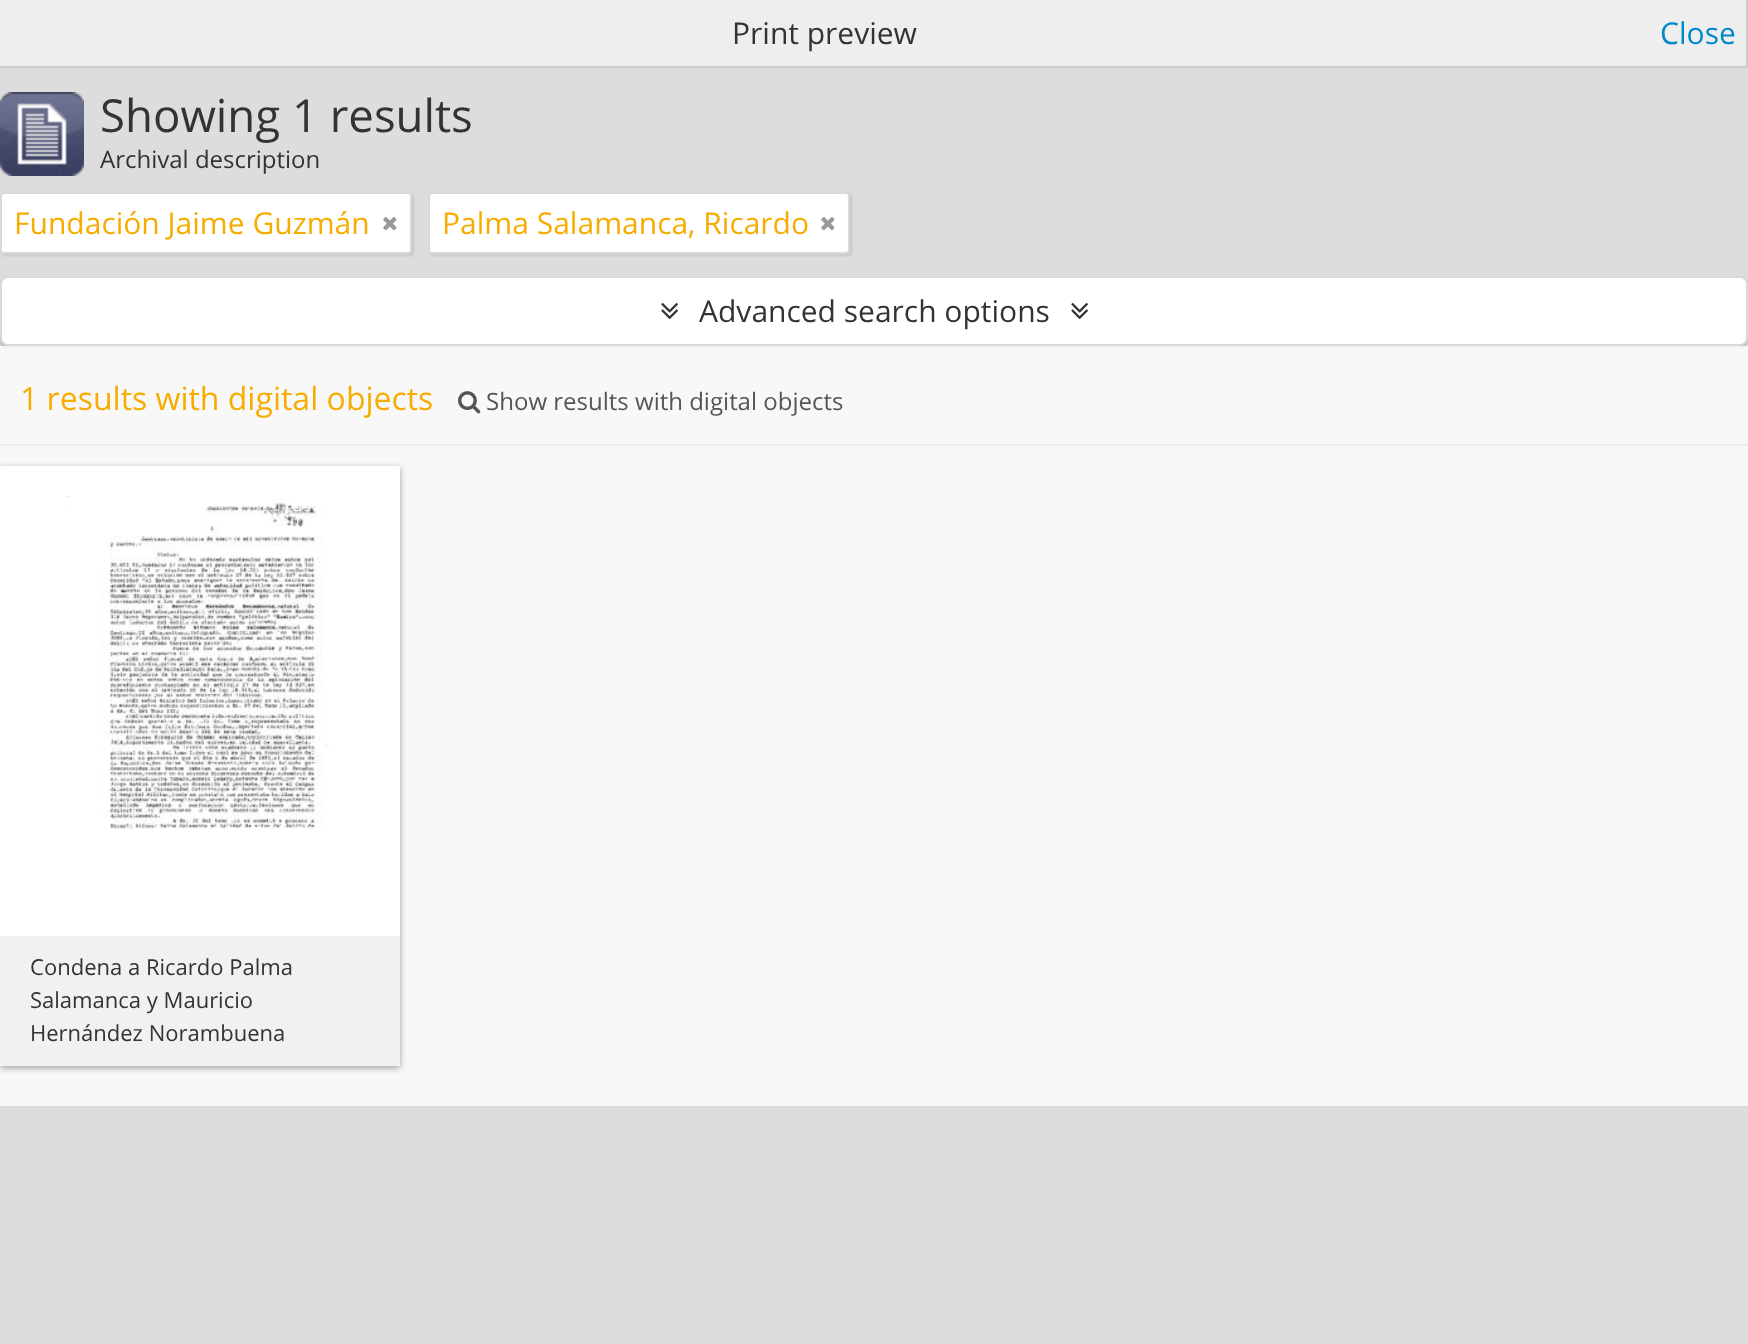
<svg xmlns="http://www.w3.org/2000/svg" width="1748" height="1344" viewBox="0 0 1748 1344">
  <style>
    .t1 { font: 30px Open Sans; fill: #333; }
    .t2 { font: 30px Open Sans; fill: #08c; }
    .t3 { font: 45.5px Open Sans; fill: #333; }
    .t4 { font: 24px Open Sans; fill: #333; }
    .t5 { font: 30px Open Sans; fill: #f6ac00; }
    .t6 { font: 32px Open Sans; fill: #f6ac00; }
    .t7 { font: 24px Open Sans; fill: #555; }
    .t8 { font: 22px Open Sans; fill: #333; }
  </style>
  <rect width="100%" height="100%" fill="#ddd"/>
  <rect x="0" y="0" width="1746" height="66" fill="#eee"/>
  <rect x="1746" y="0" width="2" height="68" fill="#ccc"/>
  <rect x="0" y="66" width="1748" height="2" fill="#ccc"/>
  <text x="732" y="44" class="t1">Print preview</text>
  <text x="1660" y="44" class="t2">Close</text>
  <image x="0" y="92" width="84" height="84" href="images/1.png"/>
  <text x="100" y="132" class="t3">Showing 1 results</text>
  <text x="100" y="168" class="t4">Archival description</text>
  <rect x="2" y="194" width="412" height="62" rx="4" fill="#0000001a" filter="blur(1px)"/>
  <rect x="1" y="193" width="410" height="60" rx="3" fill="#fff" stroke="#d9d9d9" stroke-width="2"/>
  <text x="14" y="234" class="t5">Fundación Jaime Guzmán</text>
  <image x="383" y="217" width="14" height="14" href="images/2.png"/>
  <rect x="430" y="194" width="422" height="62" rx="4" fill="#0000001a" filter="blur(1px)"/>
  <rect x="429" y="193" width="420" height="60" rx="3" fill="#fff" stroke="#d9d9d9" stroke-width="2"/>
  <text x="442" y="234" class="t5">Palma Salamanca, Ricardo</text>
  <image x="821" y="217" width="14" height="14" href="images/2.png"/>
  <rect x="0" y="278" width="1748" height="70" rx="8" fill="#00000033" filter="blur(1px)"/>
  <rect x="1" y="277" width="1746" height="68" rx="7" fill="#fff" stroke="#d9d9d9" stroke-width="2"/>
  <image x="661" y="303" width="17" height="17" href="images/3.png"/>
  <text x="699" y="322" class="t1">Advanced search options</text>
  <image x="1071" y="303" width="17" height="17" href="images/3.png"/>
  <rect x="0" y="346" width="1748" height="760" fill="#ffffffcc"/>
  <rect x="0" y="444" width="1748" height="2" fill="#eee"/>
  <text x="20" y="410" class="t6">1 results with digital objects</text>
  <image x="458" y="391" width="23" height="23" href="images/4.png"/>
  <text x="486" y="410" class="t7">Show results with digital objects</text>
  <rect x="0" y="468" width="400" height="600" fill="#19191966" filter="blur(3px)"/>
  <rect x="0" y="466" width="400" height="470" fill="#fff"/>
  <image x="66" y="496" width="263" height="333" href="images/5.png"/>
  <rect x="0" y="936" width="400" height="130" fill="#f2f0f0"/>
  <text x="30" y="975" class="t8">Condena a Ricardo Palma</text>
  <text x="30" y="1008" class="t8">Salamanca y Mauricio</text>
  <text x="30" y="1041" class="t8">Hernández Norambuena</text>
</svg>
